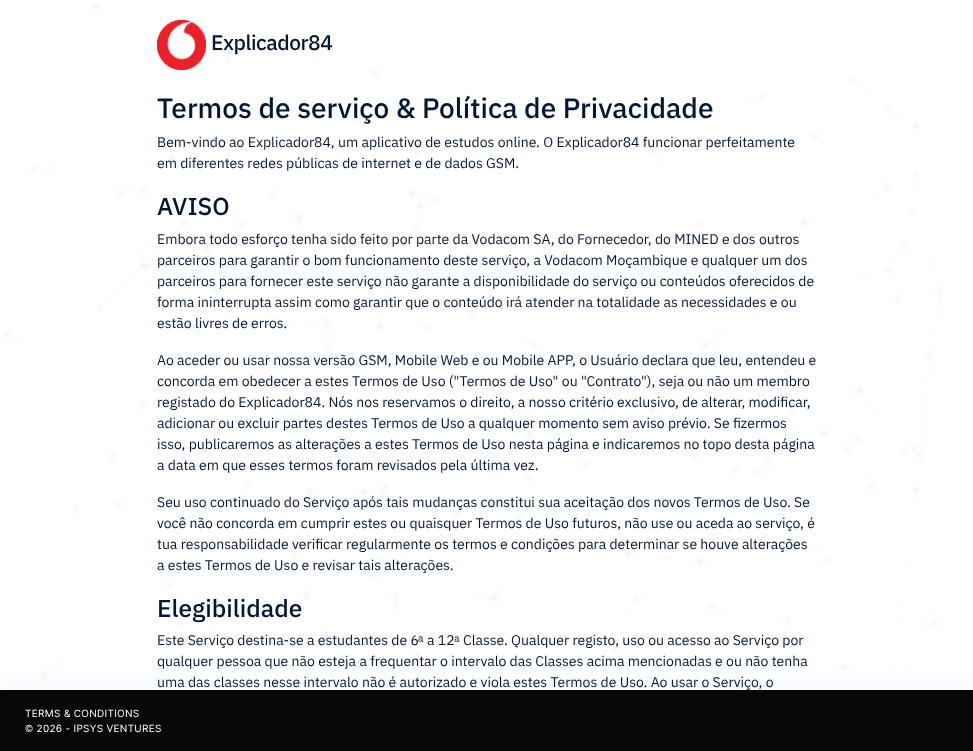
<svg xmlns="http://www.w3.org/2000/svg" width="973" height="751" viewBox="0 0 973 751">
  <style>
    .t1 { font: 500 21px IBM Plex Sans; letter-spacing: -0.5px; fill: #001737; }
    .t2 { font: 500 28px IBM Plex Sans; fill: #001737; }
    .t3 { font: 14px IBM Plex Sans; fill: #001737; }
    .t4 { font: 500 24.5px IBM Plex Sans; fill: #001737; }
    .t5 { font: 14px Liberation Sans; fill: #001737; }
    .t6 { font: 10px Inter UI; letter-spacing: 0.3px; fill: #fff; }
  </style>
  <rect width="100%" height="100%" fill="#fff"/>
  <image x="4" y="4" width="939" height="681" href="images/1.png"/>
  <image x="157" y="20" width="49" height="50" href="images/2.png"/>
  <text x="211" y="50" class="t1">Explicador84</text>
  <text x="157" y="118" class="t2">Termos de serviço &amp; Política de Privacidade</text>
  <text x="157" y="147" class="t3">Bem-vindo ao Explicador84, um aplicativo de estudos online. O Explicador84 funcionar perfeitamente</text>
  <text x="157" y="168" class="t3">em diferentes redes públicas de internet e de dados GSM.</text>
  <text x="157" y="215" class="t4">AVISO</text>
  <text x="157" y="244" class="t3">Embora todo esforço tenha sido feito por parte da Vodacom SA, do Fornecedor, do MINED e dos outros</text>
  <text x="157" y="265" class="t3">parceiros para garantir o bom funcionamento deste serviço, a Vodacom Moçambique e qualquer um dos</text>
  <text x="157" y="286" class="t3">parceiros para fornecer este serviço não garante a disponibilidade do serviço ou conteúdos oferecidos de</text>
  <text x="157" y="307" class="t3">forma ininterrupta assim como garantir que o conteúdo irá atender na totalidade as necessidades e ou</text>
  <text x="157" y="328" class="t3">estão livres de erros.</text>
  <text x="157" y="365" class="t3">Ao aceder ou usar nossa versão GSM, Mobile Web e ou Mobile APP, o Usuário declara que leu, entendeu e</text>
  <text x="157" y="386" class="t3">concorda em obedecer a estes Termos de Uso ("Termos de Uso" ou "Contrato"), seja ou não um membro</text>
  <text x="157" y="407" class="t3">registado do Explicador84. Nós nos reservamos o direito, a nosso critério exclusivo, de alterar, modificar,</text>
  <text x="157" y="428" class="t3">adicionar ou excluir partes destes Termos de Uso a qualquer momento sem aviso prévio. Se fizermos</text>
  <text x="157" y="449" class="t3">isso, publicaremos as alterações a estes Termos de Uso nesta página e indicaremos no topo desta página</text>
  <text x="157" y="470" class="t3">a data em que esses termos foram revisados pela última vez.</text>
  <text x="157" y="507" class="t3">Seu uso continuado do Serviço após tais mudanças constitui sua aceitação dos novos Termos de Uso. Se</text>
  <text x="157" y="528" class="t3">você não concorda em cumprir estes ou quaisquer Termos de Uso futuros, não use ou aceda ao serviço, é</text>
  <text x="157" y="549" class="t3">tua responsabilidade verificar regularmente os termos e condições para determinar se houve alterações</text>
  <text x="157" y="570" class="t3">a estes Termos de Uso e revisar tais alterações.</text>
  <text x="157" y="617" class="t4">Elegibilidade</text>
  <text x="157" y="645" class="t3">Este Serviço destina-se a estudantes de 6</text>
  <text x="418" y="645" class="t5">ᵃ</text>
  <text x="427" y="645" class="t3">a 12</text>
  <text x="454" y="645" class="t5">ᵃ</text>
  <text x="463" y="645" class="t3">Classe. Qualquer registo, uso ou acesso ao Serviço por</text>
  <text x="157" y="666" class="t3">qualquer pessoa que não esteja a frequentar o intervalo das Classes acima mencionadas e ou não tenha</text>
  <text x="157" y="687" class="t3">uma das classes nesse intervalo não é autorizado e viola estes Termos de Uso. Ao usar o Serviço, o</text>
  <rect x="0" y="690" width="973" height="61" fill="#1a6ce11a" filter="blur(12.5px)"/>
  <rect x="0" y="690" width="973" height="61" fill="#080808"/>
  <text x="25" y="717" class="t6">TERMS &amp; CONDITIONS</text>
  <text x="25" y="732" class="t6">© 2026 - IPSYS VENTURES</text>
</svg>
